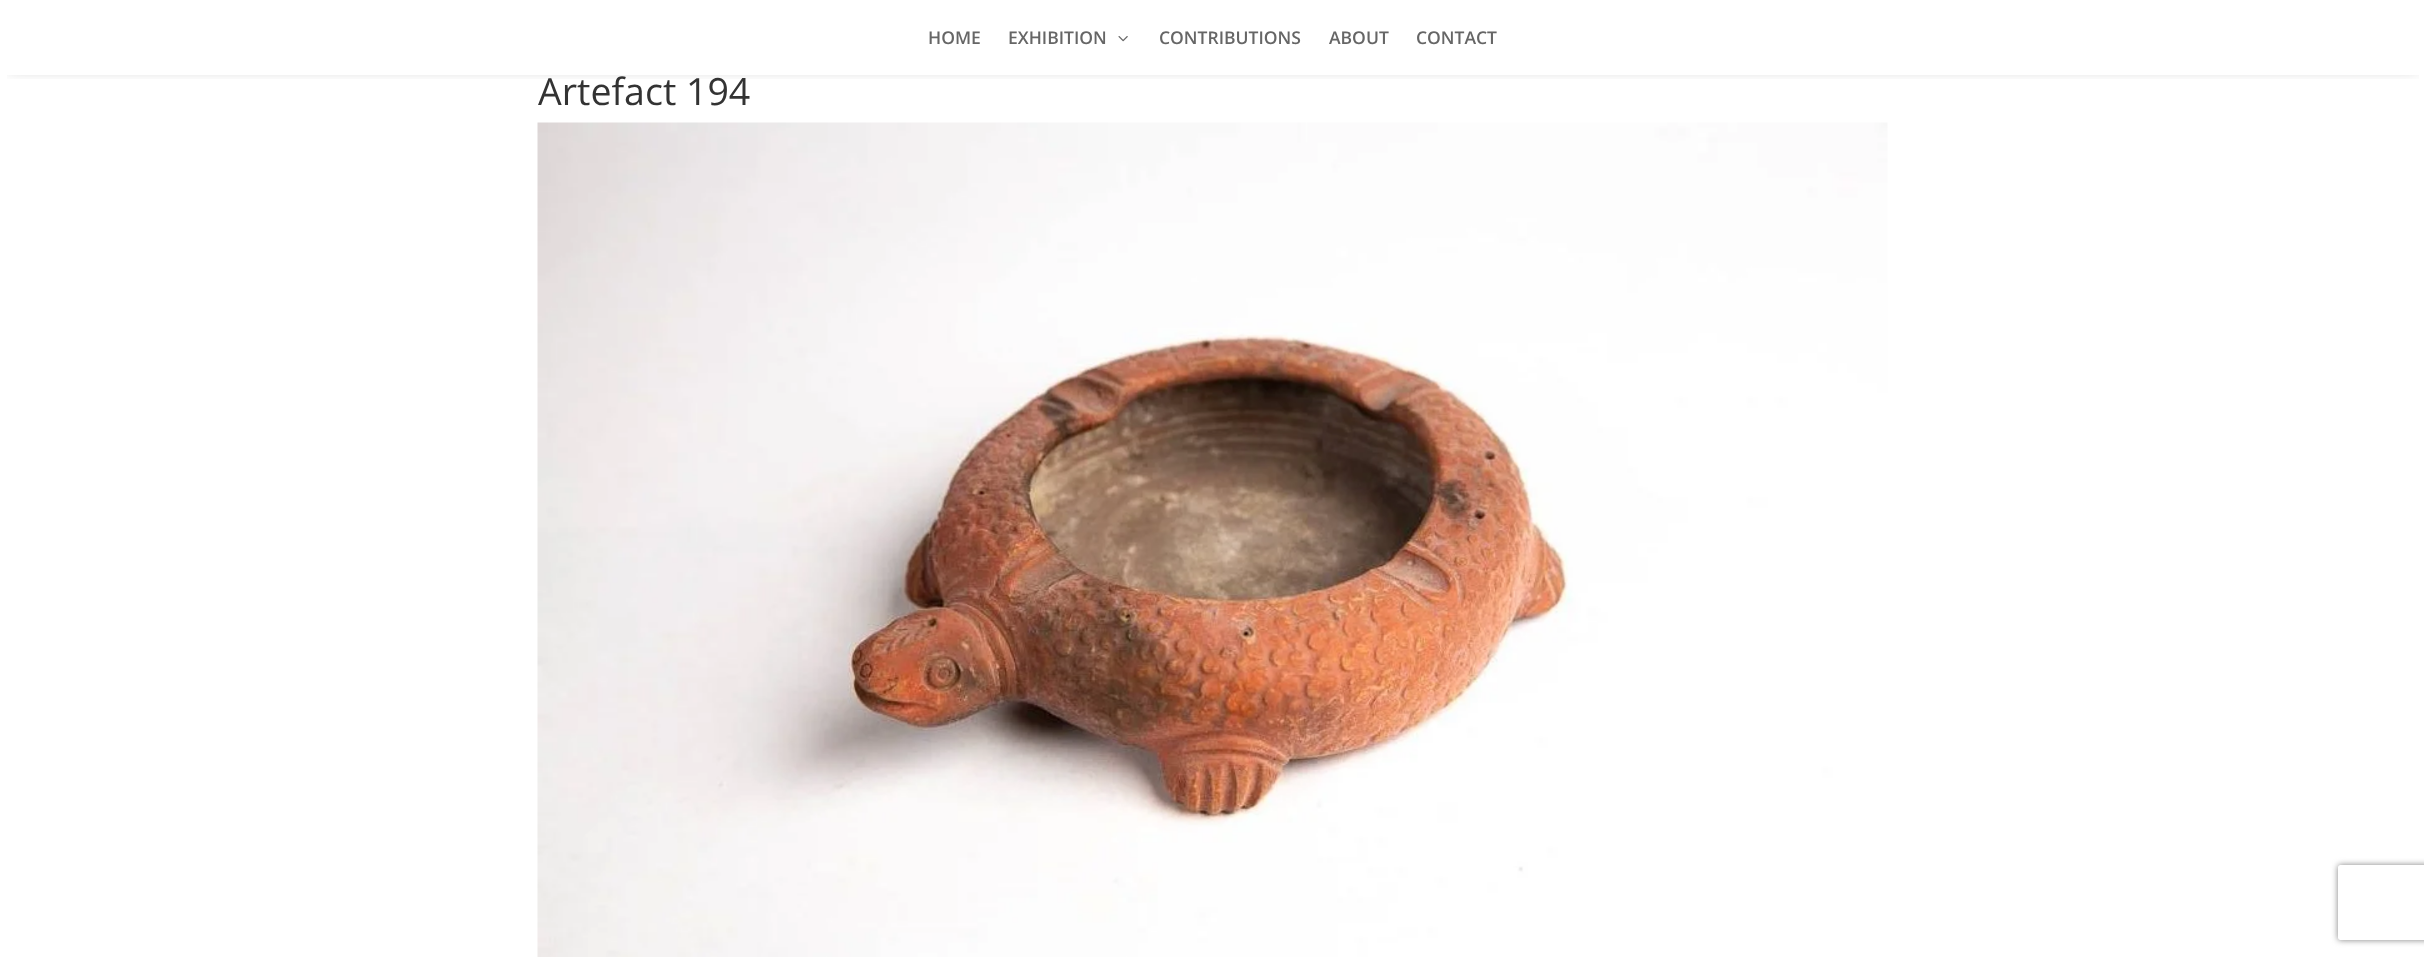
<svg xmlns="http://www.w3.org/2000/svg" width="2424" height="957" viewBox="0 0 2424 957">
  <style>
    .t1 { font: 600 17.5px Open Sans; fill: #666; }
    .t2 { font: 37.5px Open Sans; fill: #333; }
  </style>
  <defs>
    <clipPath id="clip1"><rect x="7" y="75" width="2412" height="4"/></clipPath>
    <clipPath id="clip2"><path d="M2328 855H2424V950H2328ZM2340.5 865H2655.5C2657 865 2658 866 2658 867.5V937.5C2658 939 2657 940 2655.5 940H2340.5C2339 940 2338 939 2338 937.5V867.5C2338 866 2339 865 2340.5 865Z" clip-rule="evenodd"/></clipPath>
  </defs>
  <rect width="100%" height="100%" fill="#fff"/>
  <g clip-path="url(#clip1)">
    <rect x="8" y="8" width="2410" height="60" fill="#0000004d" filter="blur(7.5px)"/>
  </g>
  <text x="928" y="44" class="t1">HOME</text>
  <text x="1008" y="44" class="t1">EXHIBITION</text>
  <image x="1118" y="36" width="10" height="6" href="images/1.png"/>
  <text x="1159" y="44" class="t1">CONTRIBUTIONS</text>
  <text x="1329" y="44" class="t1">ABOUT</text>
  <text x="1416" y="44" class="t1">CONTACT</text>
  <text x="538" y="105" class="t2">Artefact 194</text>
  <image x="537" y="122" width="1351" height="835" href="images/2.png"/>
  <g clip-path="url(#clip2)">
    <rect x="2338" y="865" width="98" height="75" rx="2.5" fill="#808080" filter="blur(3px)"/>
  </g>
</svg>
